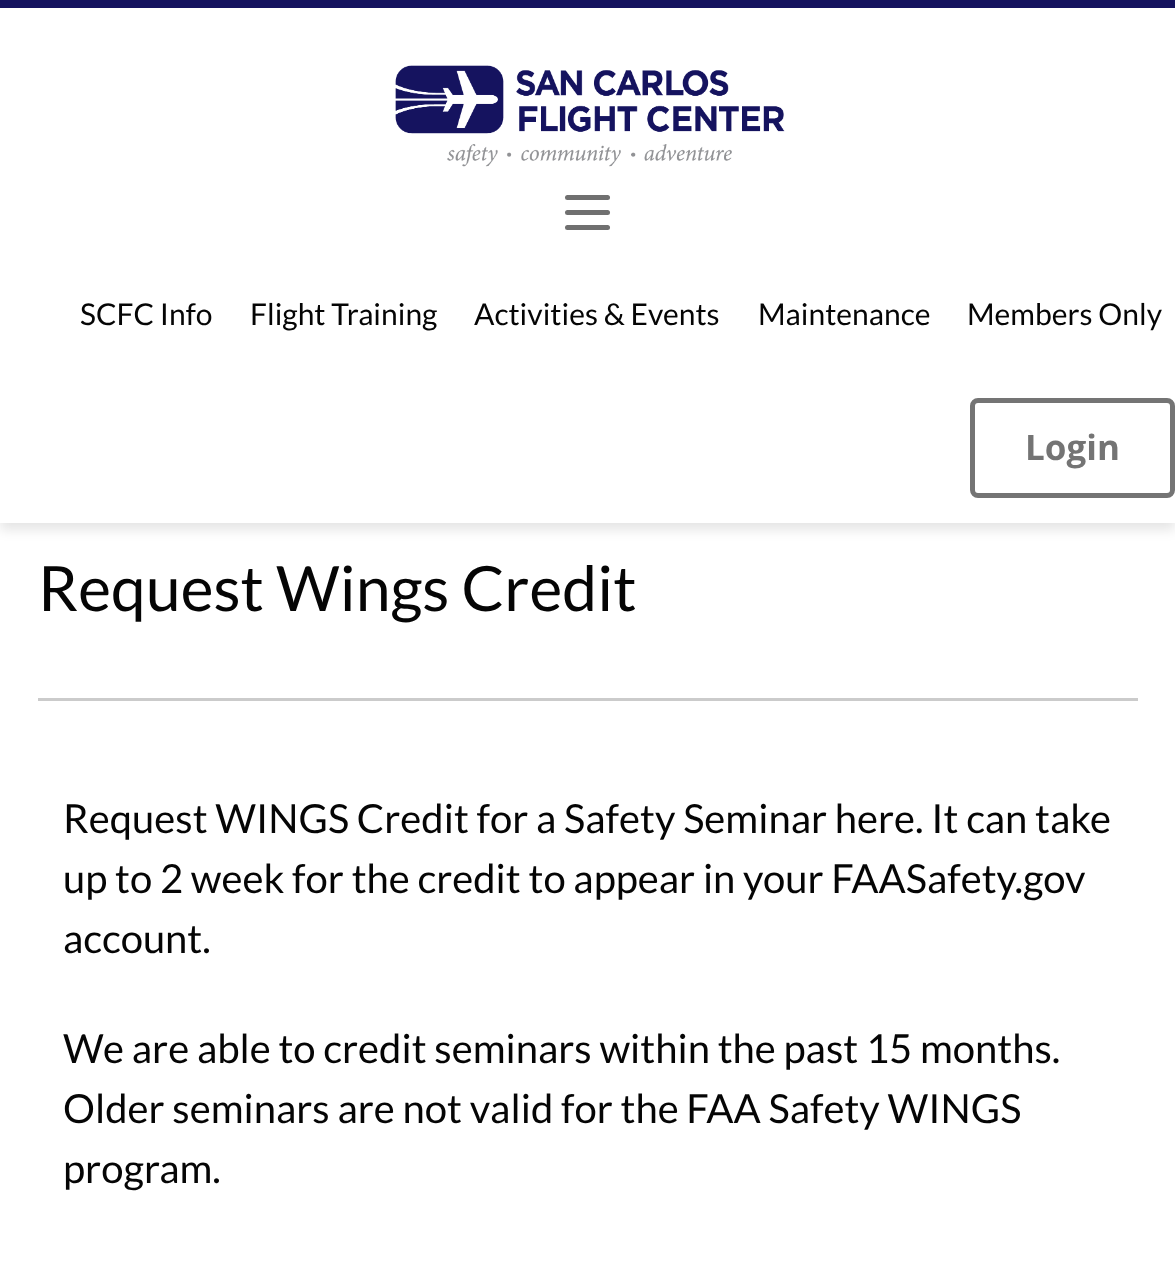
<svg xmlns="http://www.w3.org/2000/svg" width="1175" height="1265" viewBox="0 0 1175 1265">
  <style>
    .t1 { font: 30px Lato; fill: #050505; }
    .t2 { font: bold 35px Open Sans; fill: #747474; }
    .t3 { font: 62.5px Lato; fill: #050505; }
    .t4 { font: 40px Lato; fill: #050505; }
  </style>
  <rect width="100%" height="100%" fill="#fff"/>
  <rect x="0" y="8" width="1175" height="522" fill="#0000001a" filter="blur(6px)"/>
  <rect x="0" y="8" width="1175" height="515" fill="#fff"/>
  <rect x="0" y="0" width="1175" height="8" fill="#15135f"/>
  <image x="395" y="65" width="390" height="102" href="images/1.png"/>
  <rect x="565" y="225" width="45" height="5" rx="2.5" fill="#707070"/>
  <rect x="565" y="210" width="45" height="5" rx="2.5" fill="#707070"/>
  <rect x="565" y="195" width="45" height="5" rx="2.5" fill="#707070"/>
  <text x="80" y="325" class="t1">SCFC Info</text>
  <text x="250" y="325" class="t1">Flight Training</text>
  <text x="474" y="325" class="t1">Activities &amp; Events</text>
  <text x="758" y="325" class="t1">Maintenance</text>
  <text x="967" y="325" class="t1">Members Only</text>
  <rect x="972.5" y="400.5" width="200" height="95" rx="5.5" fill="none" stroke="#747474" stroke-width="5"/>
  <text x="1025" y="460" class="t2">Login</text>
  <rect x="38" y="698" width="1100" height="3" fill="#cbcbcb"/>
  <text x="38" y="611" class="t3">Request Wings Credit</text>
  <text x="63" y="833" class="t4">Request WINGS Credit for a Safety Seminar here. It can take</text>
  <text x="63" y="893" class="t4">up to 2 week for the credit to appear in your FAASafety.gov</text>
  <text x="63" y="953" class="t4">account.</text>
  <text x="63" y="1063" class="t4">We are able to credit seminars within the past 15 months.</text>
  <text x="63" y="1123" class="t4">Older seminars are not valid for the FAA Safety WINGS</text>
  <text x="63" y="1183" class="t4">program.</text>
</svg>
